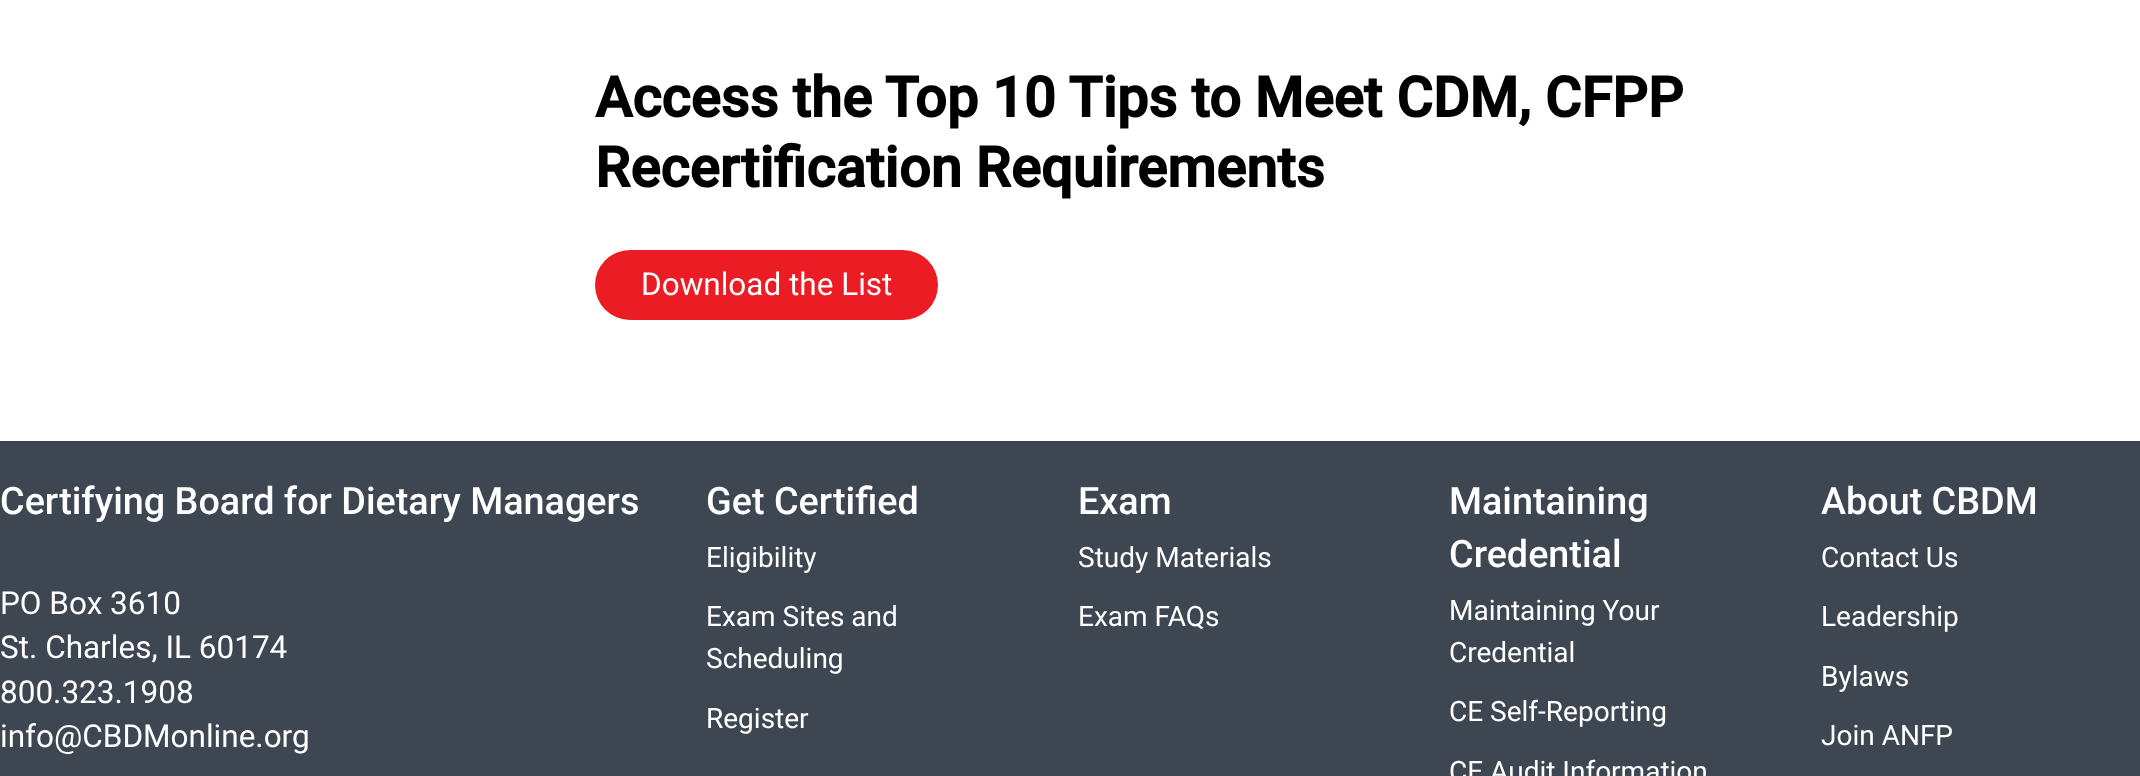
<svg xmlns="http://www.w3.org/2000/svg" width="2140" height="776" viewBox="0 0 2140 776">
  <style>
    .t1 { font: bold 56px Roboto; fill: #000; }
    .t2 { font: 31.5px Roboto; fill: #fff; }
    .t3 { font: 500 37.75px Roboto; fill: #fff; }
    .t4 { font: 28px Roboto; fill: #fff; }
  </style>
  <rect width="100%" height="100%" fill="#fff"/>
  <text x="595" y="117" class="t1">Access the Top 10 Tips to Meet CDM, CFPP</text>
  <text x="595" y="187" class="t1">Recertification Requirements</text>
  <rect x="595" y="250" width="343" height="70" rx="35" fill="#ec1c24"/>
  <text x="641" y="295" class="t2">Download the List</text>
  <rect x="0" y="441" width="2140" height="335" fill="#3e4652"/>
  <text x="0" y="514" class="t3">Certifying Board for Dietary Managers</text>
  <text x="0" y="614" class="t2">PO Box 3610</text>
  <text x="0" y="658" class="t2">St. Charles, IL 60174</text>
  <text x="0" y="703" class="t2">800.323.1908</text>
  <text x="0" y="747" class="t2">info@CBDMonline.org</text>
  <text x="706" y="514" class="t3">Get Certified</text>
  <text x="706" y="567" class="t4">Eligibility</text>
  <text x="706" y="626" class="t4">Exam Sites and</text>
  <text x="706" y="668" class="t4">Scheduling</text>
  <text x="706" y="728" class="t4">Register</text>
  <text x="1078" y="514" class="t3">Exam</text>
  <text x="1078" y="567" class="t4">Study Materials</text>
  <text x="1078" y="626" class="t4">Exam FAQs</text>
  <text x="1449" y="514" class="t3">Maintaining</text>
  <text x="1449" y="567" class="t3">Credential</text>
  <text x="1449" y="620" class="t4">Maintaining Your</text>
  <text x="1449" y="662" class="t4">Credential</text>
  <text x="1449" y="721" class="t4">CE Self-Reporting</text>
  <text x="1449" y="781" class="t4">CE Audit Information</text>
  <text x="1821" y="514" class="t3">About CBDM</text>
  <text x="1821" y="567" class="t4">Contact Us</text>
  <text x="1821" y="626" class="t4">Leadership</text>
  <text x="1821" y="686" class="t4">Bylaws</text>
  <text x="1821" y="745" class="t4">Join ANFP</text>
</svg>
